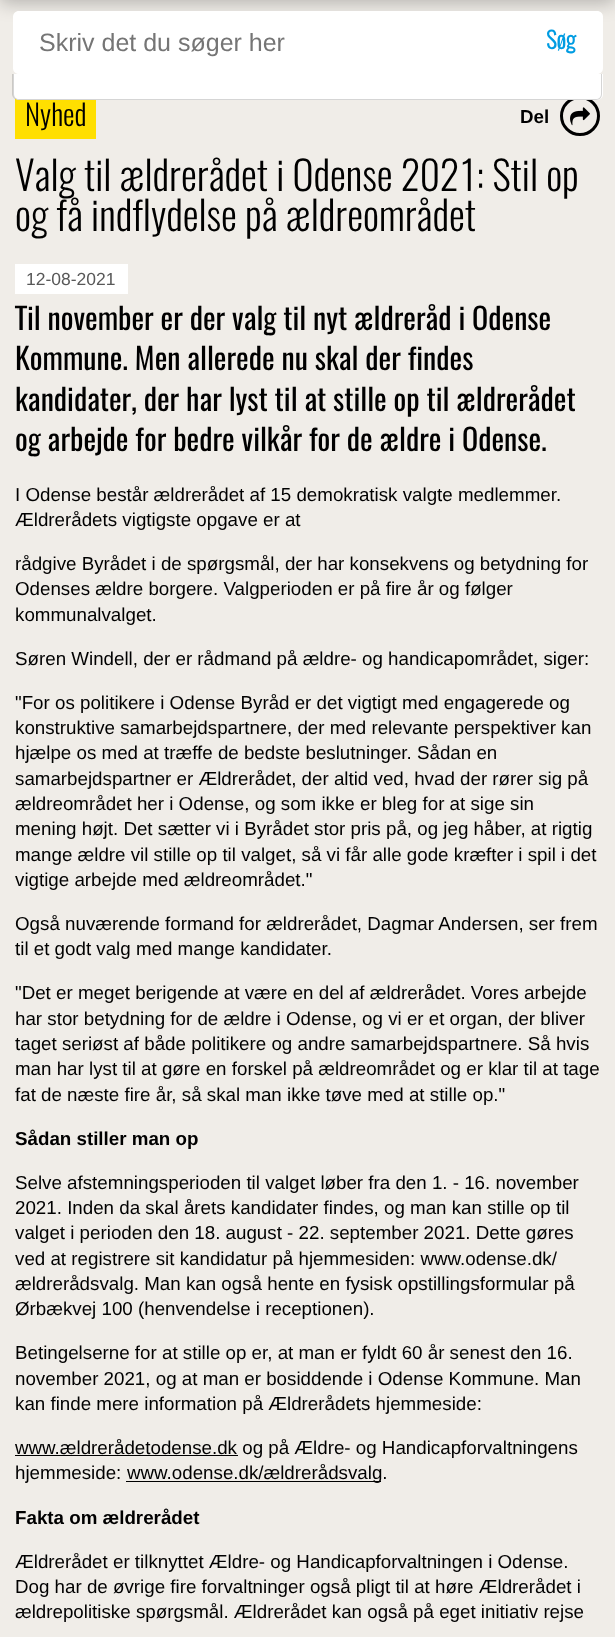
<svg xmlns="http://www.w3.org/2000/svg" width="615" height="1637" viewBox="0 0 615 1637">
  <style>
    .t1 { font: 25px Liberation Sans; fill: #757575; }
    .t2 { font: bold 23px Oswald; fill: #009ce2; }
    .t3 { font: 300 29px Oswald; fill: #000; }
    .t4 { font: bold 18.75px Liberation Sans; fill: #000; }
    .t5 { font: 300 40px Oswald; fill: #000; }
    .t6 { font: 17.5px Liberation Sans; fill: #585858; }
    .t7 { font: 30px Oswald; fill: #000; }
    .t8 { font: 18.75px Liberation Sans; fill: #000; }
  </style>
  <rect width="100%" height="100%" fill="#f0ede8"/>
  <rect x="0" y="-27" width="615" height="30" fill="#00000040" filter="blur(9px)"/>
  <path d="M19 11H521V74H19C15.5 74 13 71.5 13 68V17C13 13.5 15.5 11 19 11Z" fill="#fff"/>
  <text x="39" y="51" class="t1">Skriv det du søger her</text>
  <path d="M521 11H597C600.5 11 603 13.5 603 17V68C603 71.5 600.5 74 597 74H521Z" fill="#fff"/>
  <text x="546" y="49" class="t2">Søg</text>
  <rect x="15" y="98" width="81" height="41" fill="#ffdf00"/>
  <circle cx="580" cy="116" r="18.5" fill="none" stroke="#000" stroke-width="3"/>
  <path d="M13 74H603V94C603 97.5 600.5 100 597 100H19C15.5 100 13 97.5 13 94Z" fill="#fff"/>
  <path d="M12 74H602V94C602 97 600 100 596 100H19C15 100 12 97 12 94ZM14 74H601V94C601 97 599 99 596 99H19C16 99 14 97 14 94Z" fill="#80808054" fill-rule="evenodd"/>
  <text x="25" y="126" class="t3">Nyhed</text>
  <text x="520" y="123" class="t4">Del</text>
  <image x="570" y="107" width="20" height="19" href="images/1.png"/>
  <text x="15" y="191" class="t5">Valg til ældrerådet i Odense 2021: Stil op</text>
  <text x="15" y="231" class="t5">og få indflydelse på ældreområdet</text>
  <rect x="15" y="264" width="113" height="30" fill="#fff"/>
  <text x="26" y="285" class="t6">12-08-2021</text>
  <text x="15" y="330" class="t7">Til november er der valg til nyt ældreråd i Odense</text>
  <text x="15" y="370" class="t7">Kommune. Men allerede nu skal der findes</text>
  <text x="15" y="411" class="t7">kandidater, der har lyst til at stille op til ældrerådet</text>
  <text x="15" y="451" class="t7">og arbejde for bedre vilkår for de ældre i Odense.</text>
  <text x="15" y="501" class="t8">I Odense består ældrerådet af 15 demokratisk valgte medlemmer.</text>
  <text x="15" y="526" class="t8">Ældrerådets vigtigste opgave er at</text>
  <text x="15" y="570" class="t8">rådgive Byrådet i de spørgsmål, der har konsekvens og betydning for</text>
  <text x="15" y="595" class="t8">Odenses ældre borgere. Valgperioden er på fire år og følger</text>
  <text x="15" y="621" class="t8">kommunalvalget.</text>
  <text x="15" y="665" class="t8">Søren Windell, der er rådmand på ældre- og handicapområdet, siger:</text>
  <text x="15" y="709" class="t8">"For os politikere i Odense Byråd er det vigtigt med engagerede og</text>
  <text x="15" y="734" class="t8">konstruktive samarbejdspartnere, der med relevante perspektiver kan</text>
  <text x="15" y="759" class="t8">hjælpe os med at træffe de bedste beslutninger. Sådan en</text>
  <text x="15" y="785" class="t8">samarbejdspartner er Ældrerådet, der altid ved, hvad der rører sig på</text>
  <text x="15" y="810" class="t8">ældreområdet her i Odense, og som ikke er bleg for at sige sin</text>
  <text x="15" y="835" class="t8">mening højt. Det sætter vi i Byrådet stor pris på, og jeg håber, at rigtig</text>
  <text x="15" y="861" class="t8">mange ældre vil stille op til valget, så vi får alle gode kræfter i spil i det</text>
  <text x="15" y="886" class="t8">vigtige arbejde med ældreområdet."</text>
  <text x="15" y="930" class="t8">Også nuværende formand for ældrerådet, Dagmar Andersen, ser frem</text>
  <text x="15" y="955" class="t8">til et godt valg med mange kandidater.</text>
  <text x="15" y="999" class="t8">"Det er meget berigende at være en del af ældrerådet. Vores arbejde</text>
  <text x="15" y="1025" class="t8">har stor betydning for de ældre i Odense, og vi er et organ, der bliver</text>
  <text x="15" y="1050" class="t8">taget seriøst af både politikere og andre samarbejdspartnere. Så hvis</text>
  <text x="15" y="1075" class="t8">man har lyst til at gøre en forskel på ældreområdet og er klar til at tage</text>
  <text x="15" y="1101" class="t8">fat de næste fire år, så skal man ikke tøve med at stille op."</text>
  <text x="15" y="1145" class="t4">Sådan stiller man op</text>
  <text x="15" y="1189" class="t8">Selve afstemningsperioden til valget løber fra den 1. - 16. november</text>
  <text x="15" y="1214" class="t8">2021. Inden da skal årets kandidater findes, og man kan stille op til</text>
  <text x="15" y="1239" class="t8">valget i perioden den 18. august - 22. september 2021. Dette gøres</text>
  <text x="15" y="1265" class="t8">ved at registrere sit kandidatur på hjemmesiden: www.odense.dk/</text>
  <text x="15" y="1290" class="t8">ældrerådsvalg. Man kan også hente en fysisk opstillingsformular på</text>
  <text x="15" y="1315" class="t8">Ørbækvej 100 (henvendelse i receptionen).</text>
  <text x="15" y="1359" class="t8">Betingelserne for at stille op er, at man er fyldt 60 år senest den 16.</text>
  <text x="15" y="1385" class="t8">november 2021, og at man er bosiddende i Odense Kommune. Man</text>
  <text x="15" y="1410" class="t8">kan finde mere information på Ældrerådets hjemmeside:</text>
  <rect x="15" y="1455" width="223" height="1" fill="#000"/>
  <text x="15" y="1454" class="t8">www.ældrerådetodense.dk og på Ældre- og Handicapforvaltningens</text>
  <text x="15" y="1479" class="t8">hjemmeside:</text>
  <rect x="126" y="1481" width="255" height="1" fill="#000"/>
  <text x="127" y="1479" class="t8">www.odense.dk/ældrerådsvalg.</text>
  <text x="15" y="1524" class="t4">Fakta om ældrerådet</text>
  <text x="15" y="1568" class="t8">Ældrerådet er tilknyttet Ældre- og Handicapforvaltningen i Odense.</text>
  <text x="15" y="1593" class="t8">Dog har de øvrige fire forvaltninger også pligt til at høre Ældrerådet i</text>
  <text x="15" y="1618" class="t8">ældrepolitiske spørgsmål. Ældrerådet kan også på eget initiativ rejse</text>
</svg>
